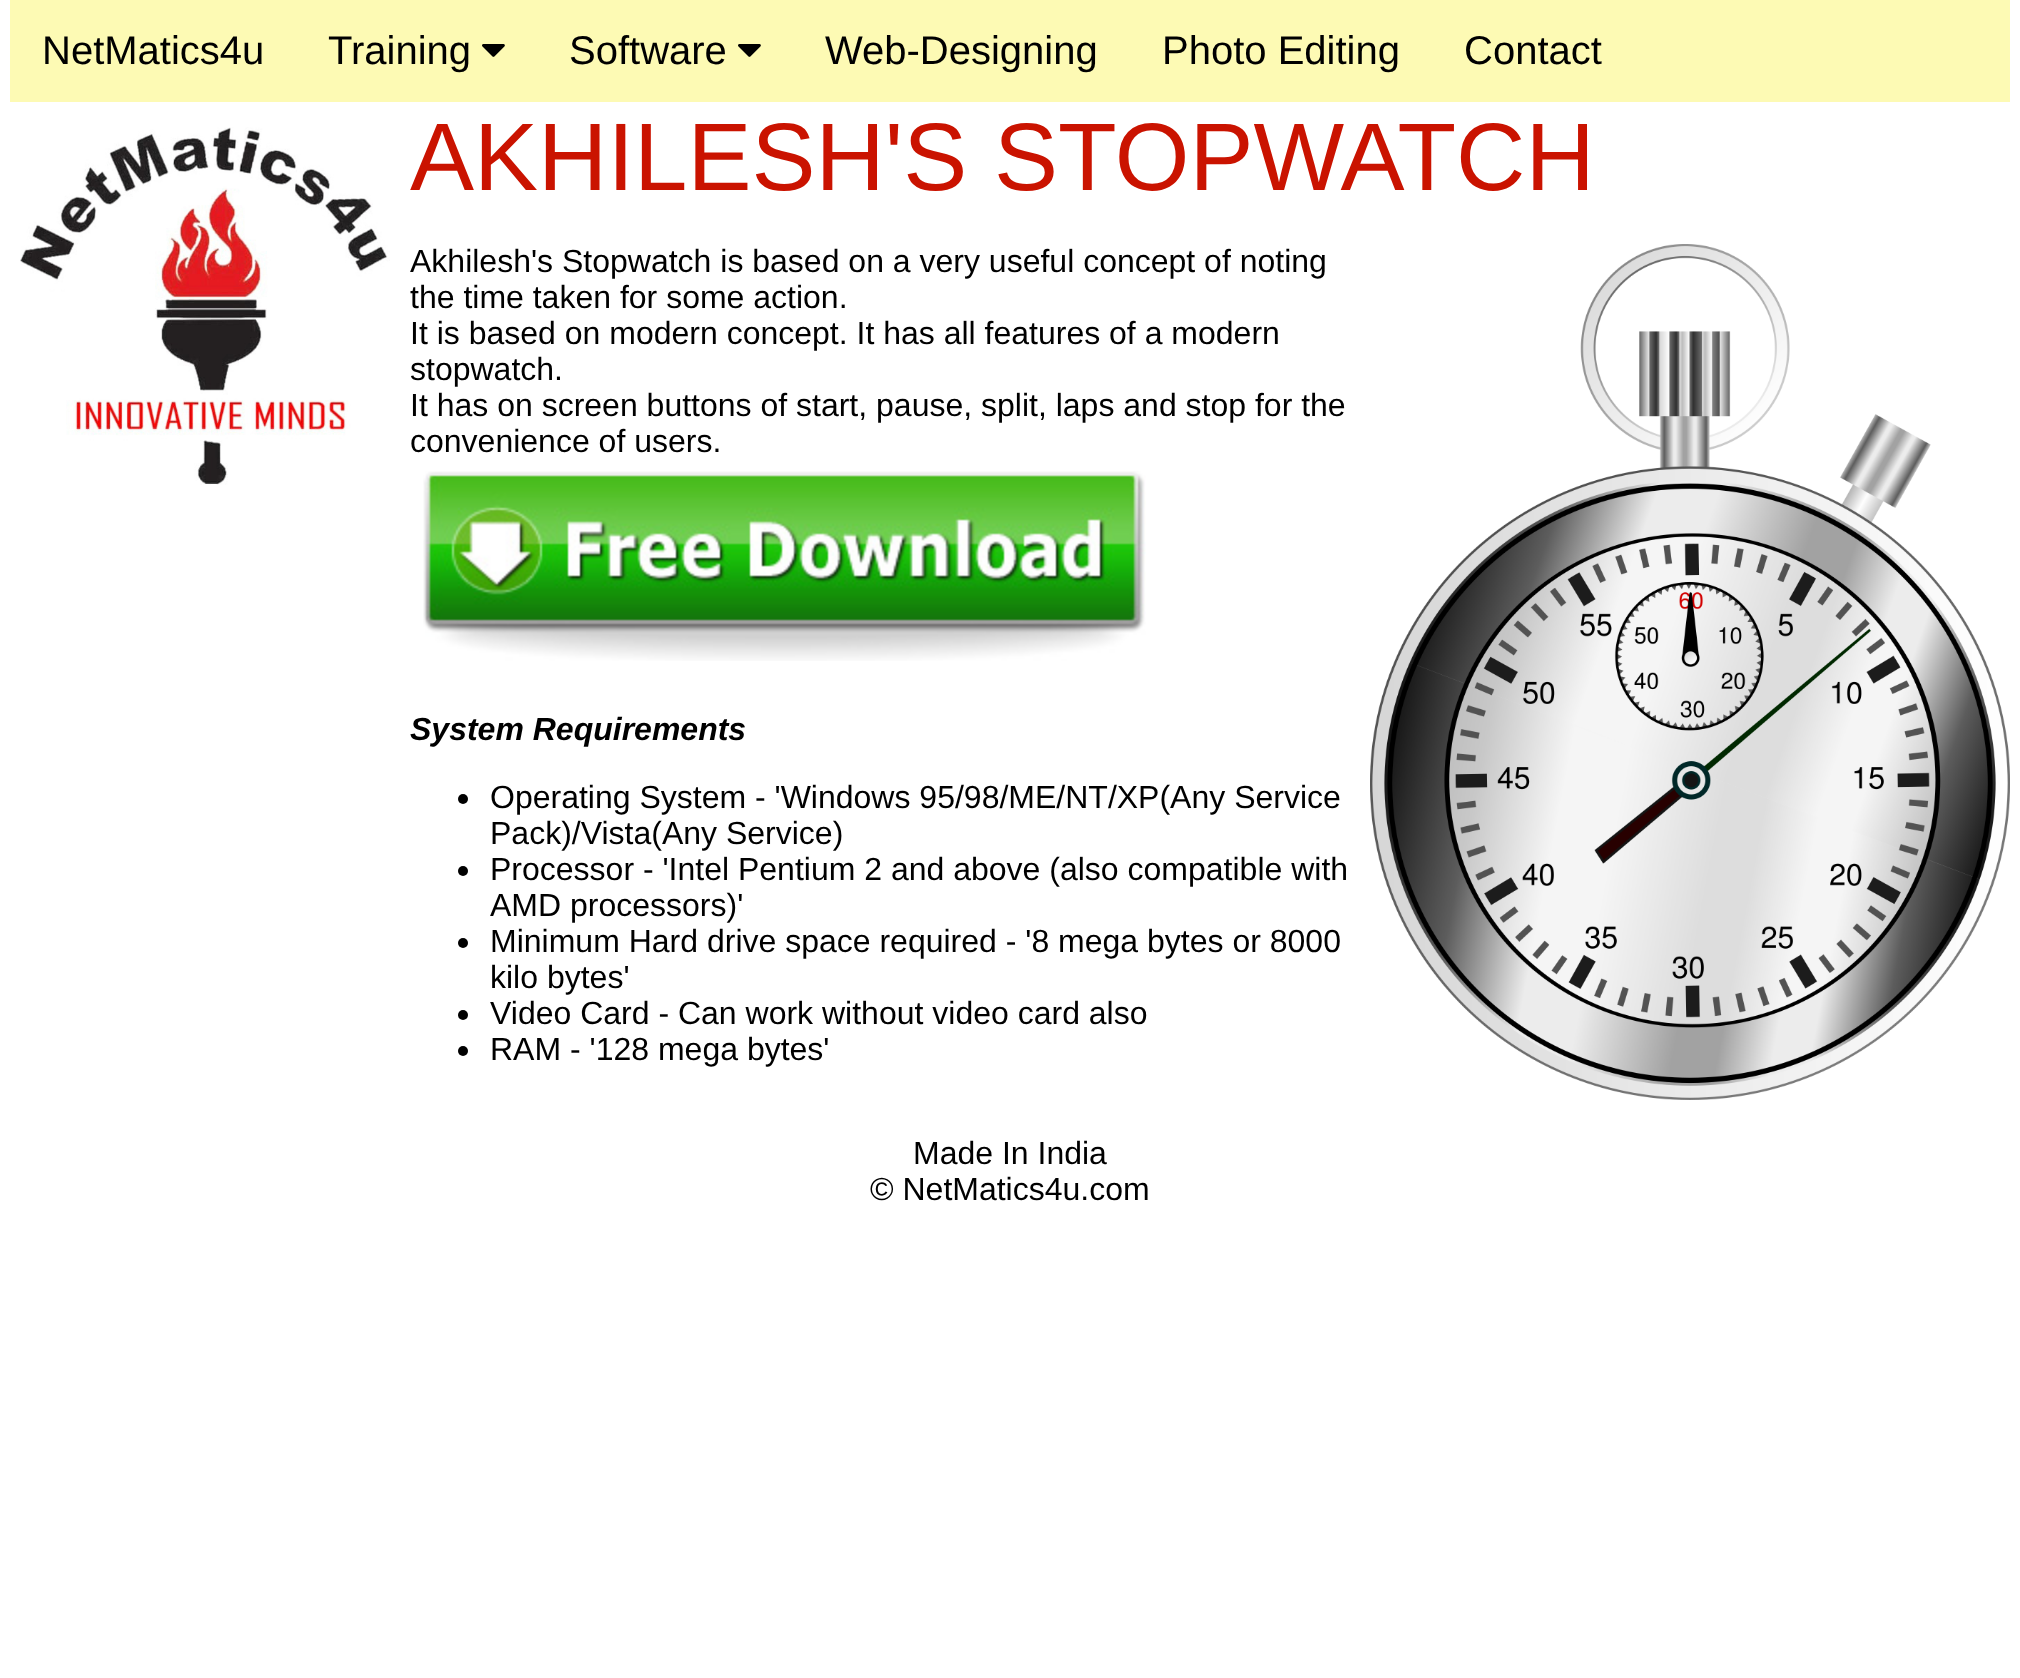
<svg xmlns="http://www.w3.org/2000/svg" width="2020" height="1678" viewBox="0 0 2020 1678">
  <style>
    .t1 { font: 40px Liberation Sans; fill: #000; }
    .t2 { font: 96px Liberation Sans; fill: #ca1300; }
    .t3 { font: 32px Liberation Sans; fill: #000; }
    .t4 { font: italic bold 32px Liberation Sans; fill: #000; }
  </style>
  <rect width="100%" height="100%" fill="#fff"/>
  <rect x="10" y="0" width="2000" height="102" fill="#fdfab4"/>
  <text x="42" y="64" class="t1">NetMatics4u</text>
  <text x="328" y="64" class="t1">Training</text>
  <image x="482" y="44" width="23" height="13" href="images/1.png"/>
  <text x="569" y="64" class="t1">Software</text>
  <image x="738" y="44" width="23" height="13" href="images/1.png"/>
  <text x="825" y="64" class="t1">Web-Designing</text>
  <text x="1162" y="64" class="t1">Photo Editing</text>
  <text x="1464" y="64" class="t1">Contact</text>
  <image x="20" y="127" width="370" height="358" href="images/2.png"/>
  <text x="410" y="190" class="t2">AKHILESH'S STOPWATCH</text>
  <text x="410" y="272" class="t3">Akhilesh's Stopwatch is based on a very useful concept of noting</text>
  <image x="1370" y="244" width="640" height="856" href="images/3.png"/>
  <text x="410" y="308" class="t3">the time taken for some action.</text>
  <text x="410" y="344" class="t3">It is based on modern concept. It has all features of a modern</text>
  <text x="410" y="380" class="t3">stopwatch.</text>
  <text x="410" y="416" class="t3">It has on screen buttons of start, pause, split, laps and stop for the</text>
  <text x="410" y="452" class="t3">convenience of users.</text>
  <image x="423" y="471" width="723" height="190" href="images/4.png"/>
  <text x="410" y="740" class="t4">System Requirements</text>
  <circle cx="463" cy="799" r="5" fill="#000"/>
  <text x="490" y="808" class="t3">Operating System - 'Windows 95/98/ME/NT/XP(Any Service</text>
  <text x="490" y="844" class="t3">Pack)/Vista(Any Service)</text>
  <circle cx="463" cy="871" r="5" fill="#000"/>
  <text x="490" y="880" class="t3">Processor - 'Intel Pentium 2 and above (also compatible with</text>
  <text x="490" y="916" class="t3">AMD processors)'</text>
  <circle cx="463" cy="943" r="5" fill="#000"/>
  <text x="490" y="952" class="t3">Minimum Hard drive space required - '8 mega bytes or 8000</text>
  <text x="490" y="988" class="t3">kilo bytes'</text>
  <circle cx="463" cy="1015" r="5" fill="#000"/>
  <text x="490" y="1024" class="t3">Video Card - Can work without video card also</text>
  <circle cx="463" cy="1051" r="5" fill="#000"/>
  <text x="490" y="1060" class="t3">RAM - '128 mega bytes'</text>
  <text x="913" y="1164" class="t3">Made In India</text>
  <text x="870" y="1200" class="t3">© NetMatics4u.com</text>
</svg>
